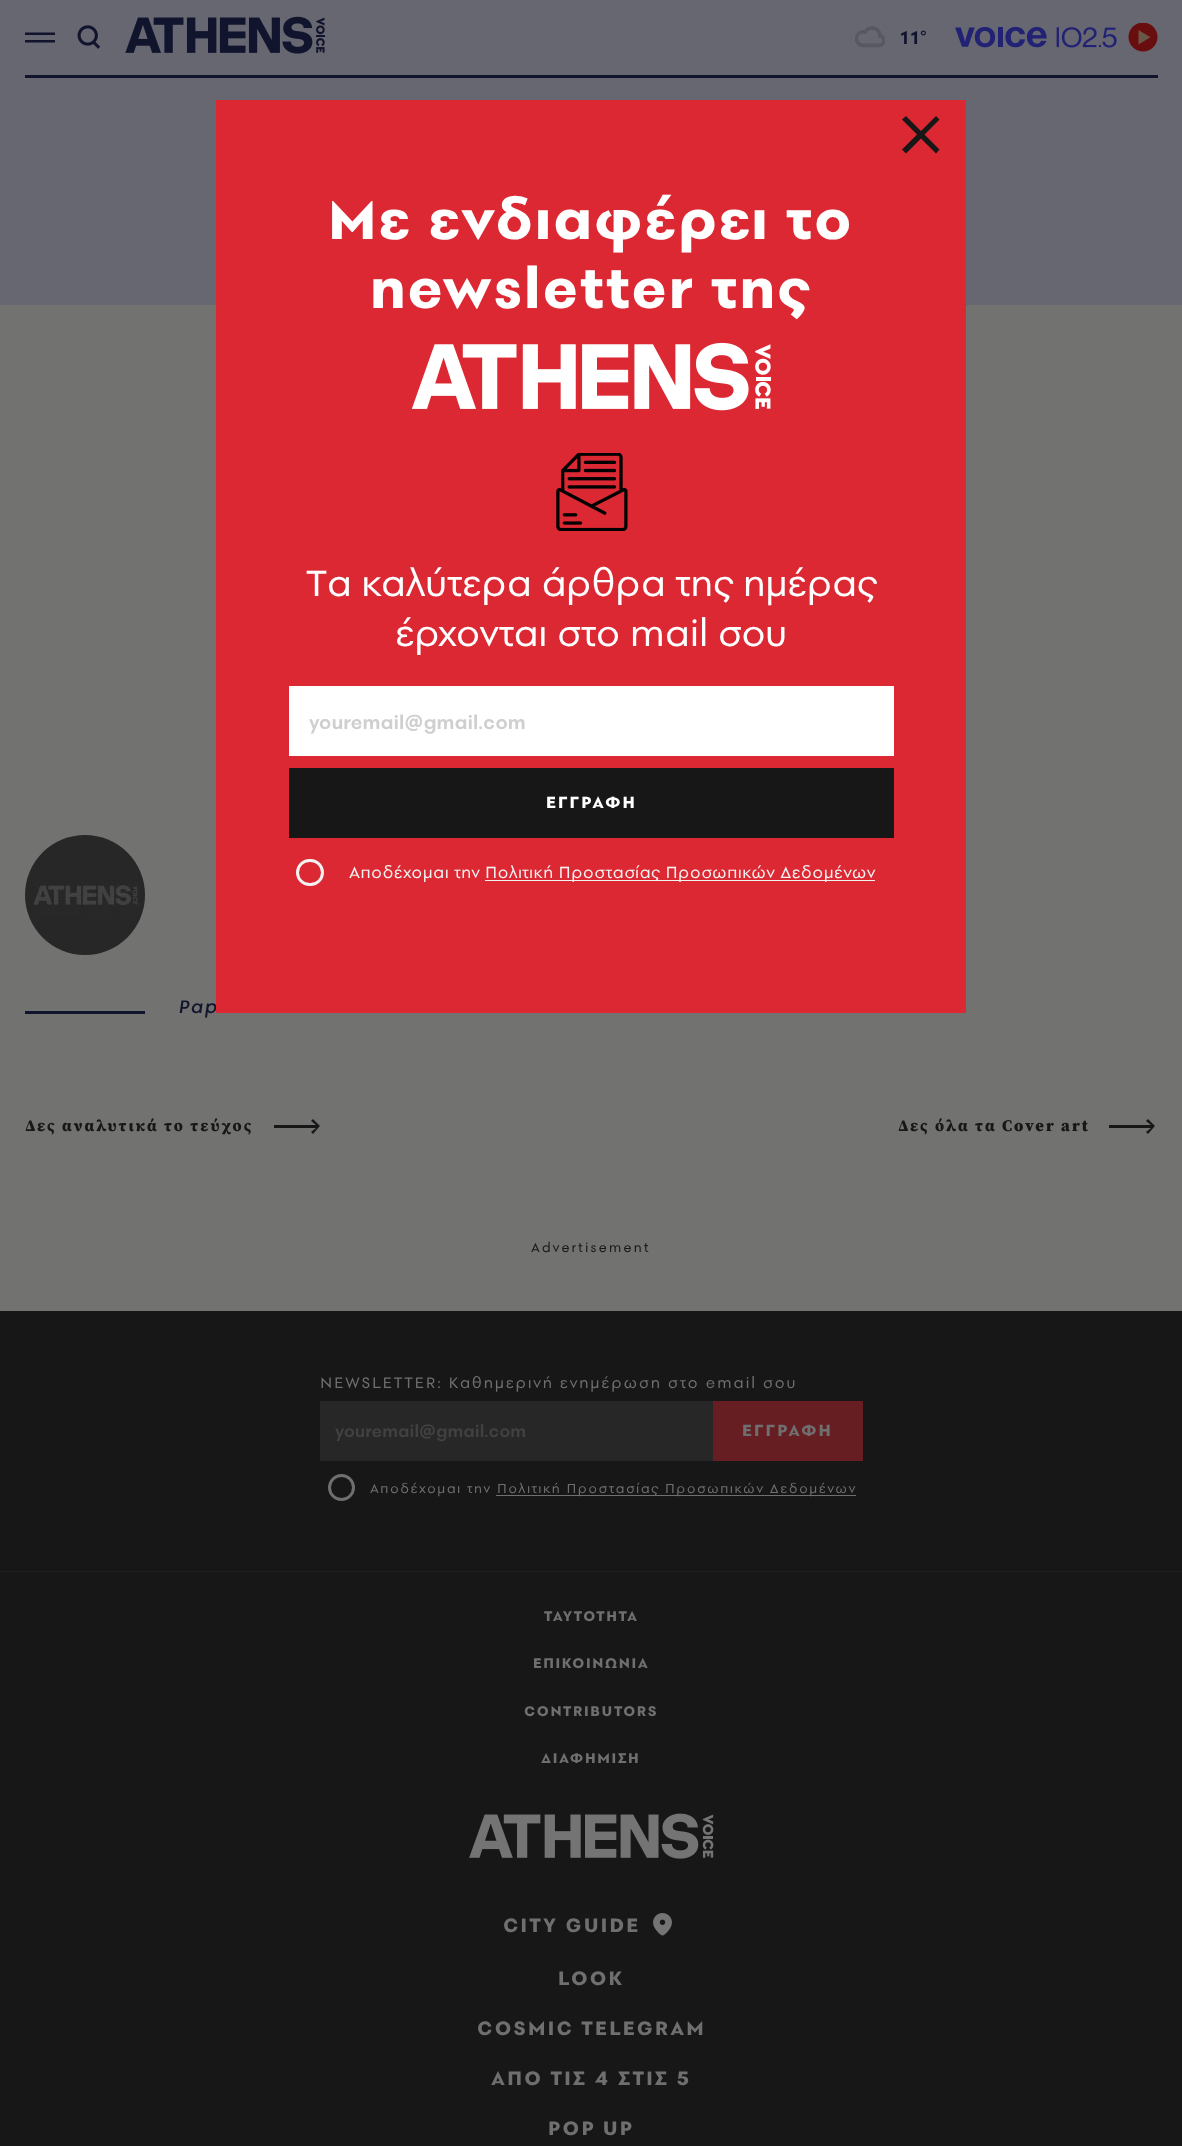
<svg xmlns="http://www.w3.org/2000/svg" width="1182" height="2146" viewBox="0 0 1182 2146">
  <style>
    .t1 { font: 600 21.25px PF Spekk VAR; letter-spacing: 1px; fill: #11142d; }
    .t2 { font: italic 500 21.25px PF Spekk VAR; letter-spacing: 1.5px; fill: #11142d; }
    .t3 { font: 900 16.25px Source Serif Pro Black; letter-spacing: 2px; fill: #171717; }
    .t4 { font: 15px PF Spekk VAR; letter-spacing: 2px; fill: #171717; }
    .t5 { font: 17.5px PF Spekk VAR; letter-spacing: 1.75px; fill: #6f6f6f; }
    .t6 { font: 600 18.75px PF Spekk VAR; fill: #414141; }
    .t7 { font: bold 18.75px PF Spekk VAR; letter-spacing: 2px; fill: #6f6f6f; }
    .t8 { font: 15px PF Spekk VAR; letter-spacing: 1.5px; fill: #6f6f6f; }
    .t9 { font: bold 16.25px PF Spekk VAR; letter-spacing: 1.6px; fill: #6f6f6f; }
    .t10 { font: bold 22.5px PF Spekk VAR; letter-spacing: 2.25px; fill: #6f6f6f; }
    .t11 { font: bold 62.5px PF Spekk VAR; letter-spacing: 2px; fill: #fff; }
    .t12 { font: 42.5px PF Spekk VAR; letter-spacing: -0.4px; fill: #fff; }
    .t13 { font: 600 21.25px PF Spekk VAR; fill: #cfcfcf; }
    .t14 { font: bold 18.75px PF Spekk VAR; letter-spacing: 2px; fill: #fff; }
    .t15 { font: 18.75px PF Spekk VAR; letter-spacing: 0.4px; fill: #f2f2f2; }
  </style>
  <rect width="100%" height="100%" fill="#727271"/>
  <rect x="0" y="0" width="1182" height="305" fill="#676772"/>
  <rect x="25" y="75" width="1133" height="3" fill="#11142d"/>
  <path d="M55 32.5H25V35H55ZM55 40H25V42.5H55Z" fill="#11142d"/>
  <image x="77" y="25" width="24" height="24" href="images/1.png"/>
  <image x="125" y="16" width="200" height="38" href="images/2.png"/>
  <image x="855" y="26" width="30" height="22" href="images/3.png"/>
  <text x="900" y="44" class="t1">11°</text>
  <image x="955" y="23" width="203" height="29" href="images/4.png"/>
  <rect x="25" y="1011" width="120" height="3" fill="#11142d"/>
  <image x="25" y="835" width="120" height="120" href="images/5.png"/>
  <text x="178" y="1013" class="t2">Pap</text>
  <text x="25" y="1131" class="t3">Δες αναλυτικά το τεύχος</text>
  <path d="M319 1127L320 1126L313 1119L311 1121L316 1125H274V1128H316L311 1132L313 1134Z" fill="#171717"/>
  <text x="898" y="1131" class="t3">Δες όλα τα Cover art</text>
  <path d="M1154 1127L1155 1126L1148 1119L1146 1121L1151 1125H1109V1128H1151L1146 1132L1148 1134Z" fill="#171717"/>
  <text x="531" y="1252" class="t4">Advertisement</text>
  <rect x="0" y="1311" width="1182" height="835" fill="#171717"/>
  <text x="320" y="1388" class="t5">NEWSLETTER: Καθημερινή ενημέρωση στο email σου</text>
  <rect x="320" y="1401" width="393" height="60" fill="#272727"/>
  <text x="335" y="1437" class="t6">youremail@gmail.com</text>
  <rect x="713" y="1401" width="150" height="60" fill="#661e22"/>
  <text x="742" y="1436" class="t7">ΕΓΓΡΑΦΗ</text>
  <circle cx="341.5" cy="1487.5" r="12" fill="none" stroke="#6f6f6f" stroke-width="3"/>
  <text x="370" y="1493" class="t8">Αποδέχομαι την</text>
  <rect x="496" y="1495" width="360" height="1" fill="#6f6f6f"/>
  <text x="497" y="1493" class="t8">Πολιτική Προστασίας Προσωπικών Δεδομένων</text>
  <rect x="0" y="1571" width="1182" height="1" fill="#202020"/>
  <text x="544" y="1621" class="t9">ΤΑΥΤΟΤΗΤΑ</text>
  <text x="533" y="1668" class="t9">ΕΠΙΚΟΙΝΩΝΙΑ</text>
  <text x="524" y="1716" class="t9">CONTRIBUTORS</text>
  <text x="541" y="1763" class="t9">ΔΙΑΦΗΜΙΣΗ</text>
  <image x="469" y="1813" width="245" height="46" href="images/6.png"/>
  <text x="503" y="1932" class="t10">CITY GUIDE</text>
  <image x="653" y="1913" width="19" height="23" href="images/7.png"/>
  <text x="558" y="1985" class="t10">LOOK</text>
  <text x="477" y="2035" class="t10">COSMIC TELEGRAM</text>
  <text x="491" y="2085" class="t10">ΑΠΟ ΤΙΣ 4 ΣΤΙΣ 5</text>
  <text x="548" y="2135" class="t10">POP UP</text>
  <rect x="216" y="100" width="750" height="913" fill="#dc2833"/>
  <path d="M936 153.5L939.5 149.5L924.5 134.5L939.5 119.5L936 116L921 131L906 116L902 119.5L917 134.5L902 149.5L906 153.5L921 138.5Z" fill="#171717"/>
  <text x="328" y="239" class="t11">Mε ενδιαφέρει το</text>
  <text x="370" y="308" class="t11">newsletter της</text>
  <image x="411" y="342" width="360" height="69" href="images/8.png"/>
  <image x="556" y="453" width="72" height="78" href="images/9.png"/>
  <text x="306" y="596" class="t12">Tα καλύτερα άρθρα της ημέρας</text>
  <text x="395" y="646" class="t12">έρχονται στο mail σου</text>
  <rect x="289" y="686" width="605" height="70" fill="#fff"/>
  <text x="309" y="729" class="t13">youremail@gmail.com</text>
  <rect x="289" y="768" width="605" height="70" fill="#171717"/>
  <text x="546" y="808" class="t14">ΕΓΓΡΑΦΗ</text>
  <rect x="297.5" y="860.5" width="25" height="24" rx="12" fill="none" stroke="#f2f2f2" stroke-width="3"/>
  <text x="349" y="878" class="t15">Αποδέχομαι την</text>
  <rect x="485" y="880" width="390" height="1" fill="#f2f2f2"/>
  <text x="485" y="878" class="t15">Πολιτική Προστασίας Προσωπικών Δεδομένων</text>
</svg>
